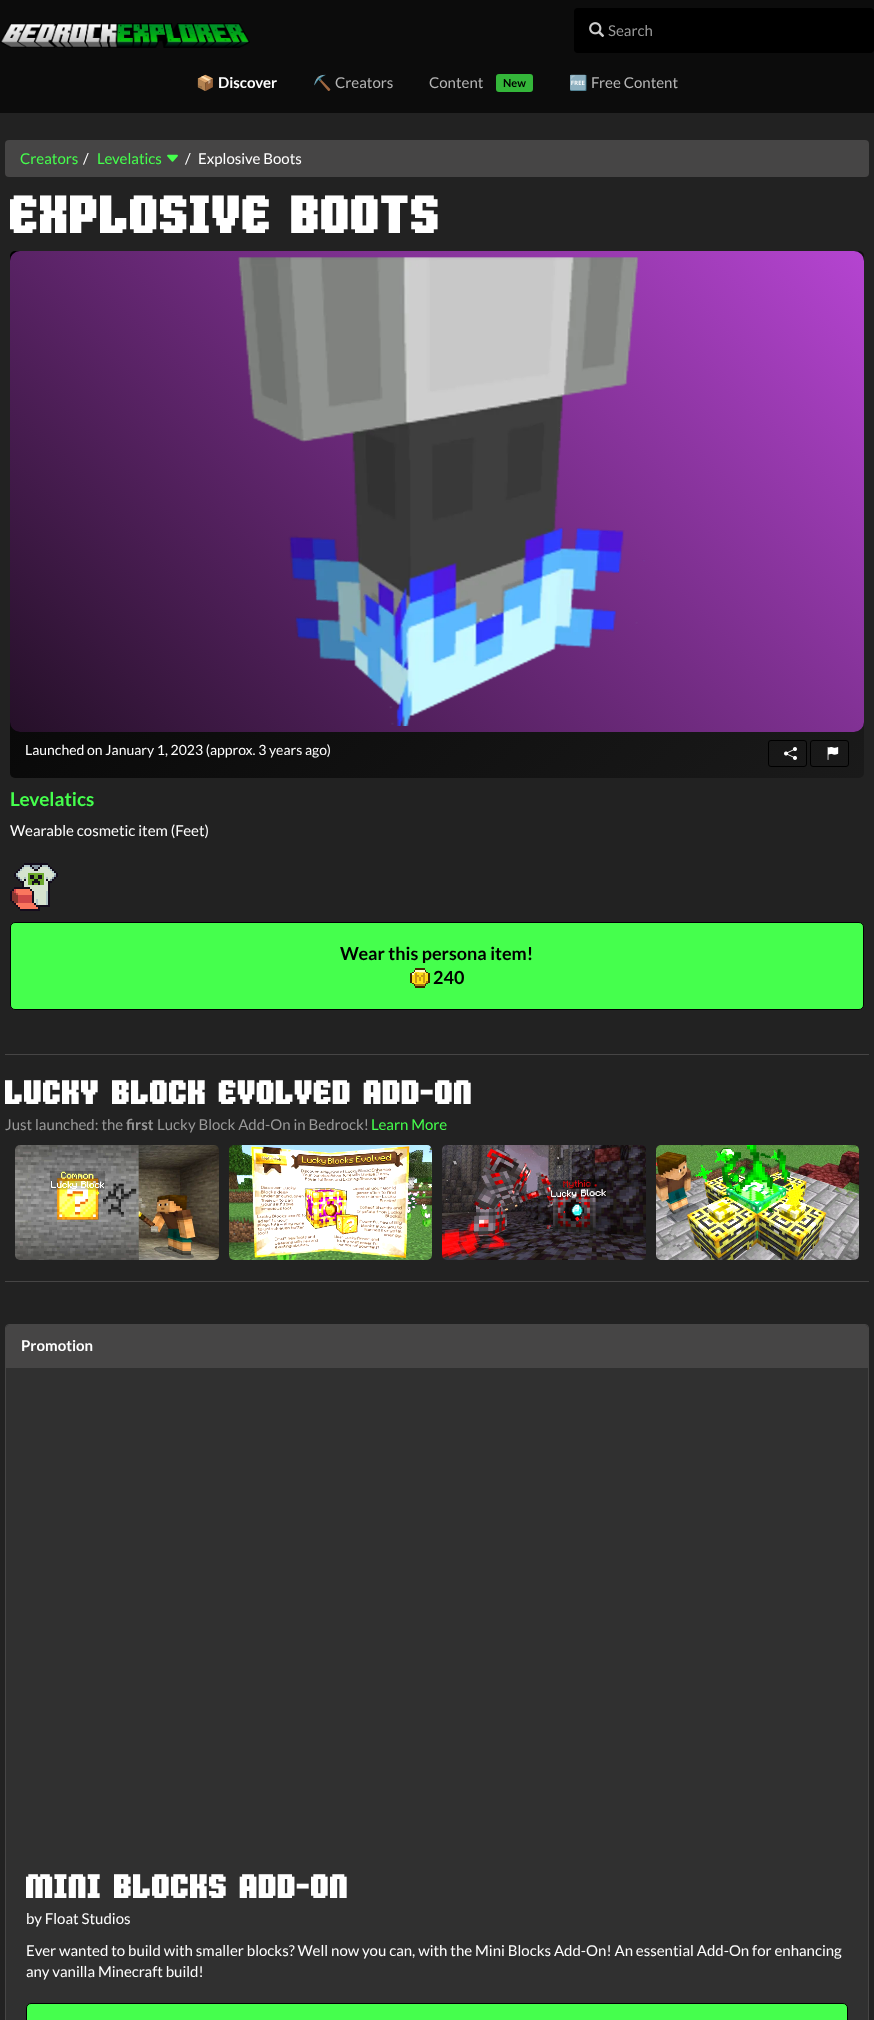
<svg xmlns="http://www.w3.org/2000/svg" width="874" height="2020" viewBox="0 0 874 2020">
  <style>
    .t1 { font: 15px Lato; fill: #999; }
    .t2 { font: bold 15px Noto Color Emoji; fill: #fff; }
    .t3 { font: bold 15px Lato; fill: #fff; }
    .t4 { font: 15px Noto Color Emoji; fill: #b6b6b6; }
    .t5 { font: 15px Lato; fill: #b6b6b6; }
    .t6 { font: bold 11px Lato; fill: #000; }
    .t7 { font: 15px Lato; fill: #45ff4d; }
    .t8 { font: 15px Lato; fill: #fff; }
    .t9 { font: 60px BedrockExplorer; fill: #fff; }
    .t10 { font: 14px Lato; fill: #fff; }
    .t11 { font: bold 19px Lato; fill: #45ff4d; }
    .t12 { font: bold 18px Lato; fill: #000; }
    .t13 { font: 38px BedrockExplorer; fill: #fff; }
    .t14 { font: bold 15px Lato; fill: #999; }
  </style>
  <defs>
    <linearGradient id="g1" gradientUnits="userSpaceOnUse" x1="92" y1="169" x2="782" y2="860"><stop offset="0" stop-color="#000"/><stop offset="1" stop-color="#1a1a1a"/></linearGradient>
    <linearGradient id="g2" gradientUnits="userSpaceOnUse" x1="103" y1="825" x2="771" y2="158"><stop offset="0" stop-color="#251028"/><stop offset="1" stop-color="#b544d1"/></linearGradient>
  </defs>
  <rect width="100%" height="100%" fill="#222"/>
  <rect x="0" y="0" width="874" height="113" fill="#0c0c0c"/>
  <image x="0" y="23" width="250" height="25" href="images/1.png"/>
  <rect x="574" y="8" width="300" height="45" rx="4" fill="#000"/>
  <image x="589" y="22" width="16" height="15" href="images/2.png"/>
  <text x="608" y="36" class="t1">Search</text>
  <text x="196" y="88" class="t2">📦</text>
  <text x="218" y="88" class="t3">Discover</text>
  <text x="313" y="88" class="t4">⛏️</text>
  <text x="335" y="88" class="t5">Creators</text>
  <text x="429" y="88" class="t5">Content</text>
  <rect x="496" y="74" width="37" height="18" rx="3" fill="#34b63a"/>
  <text x="503" y="87" class="t6">New</text>
  <text x="569" y="88" class="t4">🆓</text>
  <text x="591" y="88" class="t5">Free Content</text>
  <rect x="5" y="140" width="864" height="37" rx="4" fill="#464545"/>
  <text x="20" y="164" class="t7">Creators</text>
  <text x="83" y="164" class="t8">/</text>
  <text x="97" y="164" class="t7">Levelatics</text>
  <image x="167" y="154" width="11" height="8" href="images/3.png"/>
  <text x="185" y="164" class="t8">/</text>
  <text x="198" y="164" class="t8">Explosive Boots</text>
  <text x="10" y="233" class="t9">EXPLOSIVE BOOTS</text>
  <rect x="10" y="251" width="854" height="527" rx="5" fill="url(#g1)"/>
  <image x="10" y="251" width="854" height="481" href="images/4.png"/>
  <rect x="10" y="251" width="854" height="481" rx="10" fill="url(#g2)"/>
  <image x="238" y="257" width="407" height="470" href="images/5.png"/>
  <text x="25" y="755" class="t10">Launched on January 1, 2023 (approx. 3 years ago)</text>
  <rect x="768.5" y="740.5" width="38" height="26" rx="2.5" fill="none" stroke="#000"/>
  <image x="784" y="747" width="13" height="13" href="images/6.png"/>
  <rect x="810.5" y="740.5" width="38" height="26" rx="2.5" fill="none" stroke="#000"/>
  <image x="827" y="747" width="12" height="13" href="images/7.png"/>
  <text x="10" y="806" class="t11">Levelatics</text>
  <text x="10" y="836" class="t8">Wearable cosmetic item (Feet)</text>
  <image x="10" y="863" width="48" height="48" href="images/8.png"/>
  <rect x="10.5" y="922.5" width="853" height="87" rx="4.5" fill="#45ff4d" stroke="#000"/>
  <text x="340" y="960" class="t12">Wear this persona item!</text>
  <image x="410" y="968" width="20" height="20" href="images/9.png"/>
  <text x="433" y="984" class="t12">240</text>
  <rect x="5" y="1054" width="864" height="1" fill="#464545"/>
  <text x="5" y="1104" class="t13">LUCKY BLOCK EVOLVED ADD-ON</text>
  <text x="5" y="1130" class="t1">Just launched: the</text>
  <text x="126" y="1130" class="t14">first</text>
  <text x="157" y="1130" class="t1">Lucky Block Add-On in Bedrock!</text>
  <text x="371" y="1130" class="t7">Learn More</text>
  <image x="15" y="1145" width="204" height="115" href="images/10.png"/>
  <image x="229" y="1145" width="203" height="115" href="images/11.png"/>
  <image x="442" y="1145" width="204" height="115" href="images/12.png"/>
  <image x="656" y="1145" width="203" height="115" href="images/13.png"/>
  <rect x="5" y="1281" width="864" height="1" fill="#464545"/>
  <rect x="5.5" y="1324.5" width="863" height="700" rx="3.5" fill="#303030" stroke="#464545"/>
  <path d="M9 1325H865C866.5 1325 868 1326.5 868 1328V1368H6V1328C6 1326.5 7.5 1325 9 1325Z" fill="#464545"/>
  <text x="21" y="1351" class="t3">Promotion</text>
  <text x="26" y="1898" class="t13">MINI BLOCKS ADD-ON</text>
  <text x="26" y="1924" class="t8">by Float Studios</text>
  <text x="26" y="1956" class="t8">Ever wanted to build with smaller blocks? Well now you can, with the Mini Blocks Add-On! An essential Add-On for enhancing</text>
  <text x="26" y="1977" class="t8">any vanilla Minecraft build!</text>
  <rect x="26.5" y="2003.5" width="821" height="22" rx="4.5" fill="#45ff4d" stroke="#000"/>
</svg>
